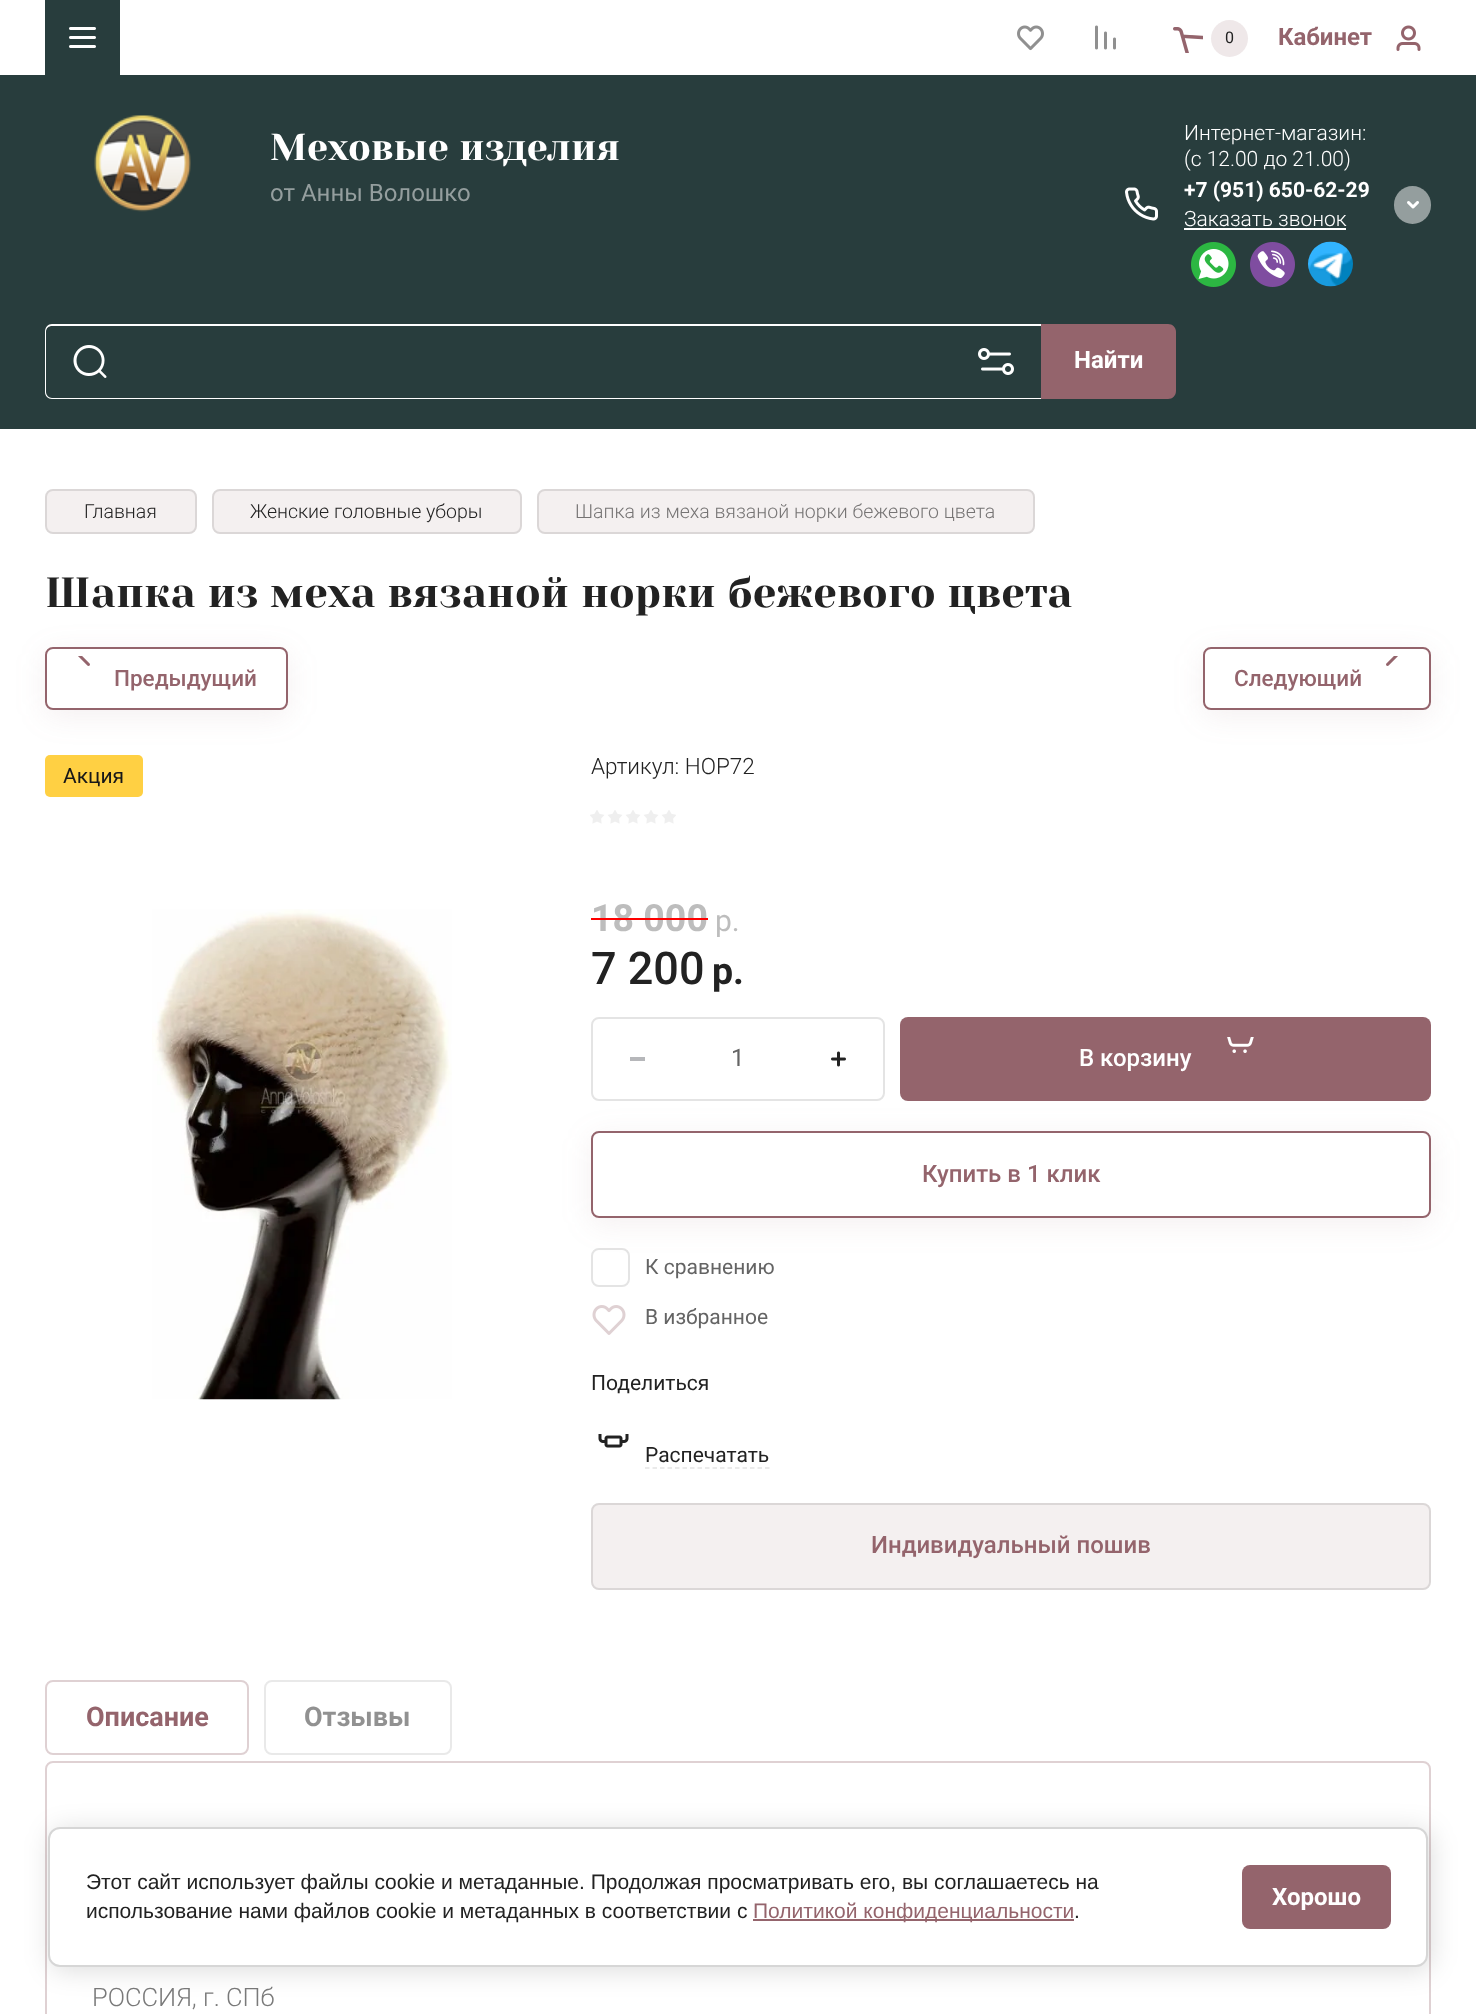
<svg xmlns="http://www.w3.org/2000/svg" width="1476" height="2014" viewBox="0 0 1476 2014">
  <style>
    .t1 { font: 16px Roboto; fill: #222; }
    .t2 { font: bold 24px Roboto; fill: #94646c; }
    .t3 { font: 37.5px Yeseva One; fill: #fff; }
    .t4 { font: 24px Roboto; fill: #949e9e; }
    .t5 { font: 300 21px Roboto; fill: #fff; }
    .t6 { font: bold 21px Roboto; fill: #fff; }
    .t7 { font: bold 24px Roboto; fill: #fff; }
    .t8 { font: 300 19.5px Roboto; fill: #222; }
    .t9 { font: 300 19.5px Roboto; fill: #767474; }
    .t10 { font: 42px Yeseva One; fill: #222; }
    .t11 { font: 500 22.5px Roboto; fill: #94646c; }
    .t12 { font: 21px Roboto; fill: #171718; }
    .t13 { font: 300 22.5px Roboto; fill: #222; }
    .t14 { font: bold 37.5px Roboto; fill: #bdbdbd; }
    .t15 { font: 30px Roboto; fill: #bdbdbd; }
    .t16 { font: 500 45px Roboto; fill: #222; }
    .t17 { font: bold 37.5px Roboto; fill: #222; }
    .t18 { font: 24px Roboto; fill: #646464; }
    .t19 { font: 500 24px Roboto; fill: #fff; }
    .t20 { font: 500 24px Roboto; fill: #94646c; }
    .t21 { font: 21px Roboto; fill: #646464; }
    .t22 { font: 21px Roboto; fill: #222; }
    .t23 { font: bold 27px Roboto; fill: #94646c; }
    .t24 { font: bold 27px Roboto; fill: #919191; }
    .t25 { font: 300 25.5px Roboto; fill: #7a7a7a; }
    .t26 { font: 21px Liberation Sans; fill: #222; }
    .t27 { font: 21px Liberation Sans; fill: #94646c; }
  </style>
  <defs>
    <clipPath id="clip1"><path d="M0 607H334V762H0ZM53 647H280C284.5 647 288 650.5 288 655V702C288 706.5 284.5 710 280 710H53C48.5 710 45 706.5 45 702V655C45 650.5 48.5 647 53 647Z" clip-rule="evenodd"/></clipPath>
    <clipPath id="clip2"><path d="M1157 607H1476V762H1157ZM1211 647H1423C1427.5 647 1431 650.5 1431 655V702C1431 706.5 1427.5 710 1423 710H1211C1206.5 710 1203 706.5 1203 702V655C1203 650.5 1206.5 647 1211 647Z" clip-rule="evenodd"/></clipPath>
    <clipPath id="clip3"><path d="M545 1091H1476V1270H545ZM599 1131H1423C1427.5 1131 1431 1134.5 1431 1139V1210C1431 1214.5 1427.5 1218 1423 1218H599C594.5 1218 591 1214.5 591 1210V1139C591 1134.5 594.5 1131 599 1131Z" clip-rule="evenodd"/></clipPath>
  </defs>
  <rect width="100%" height="100%" fill="#fff"/>
  <rect x="45" y="0" width="75" height="75" fill="#283d3d"/>
  <image x="69" y="27" width="27" height="21" href="images/1.png"/>
  <image x="1017" y="25" width="27" height="26" href="images/2.png"/>
  <image x="1095" y="25" width="21" height="25" href="images/3.png"/>
  <image x="1173" y="27" width="30" height="26" href="images/4.png"/>
  <circle cx="1229.5" cy="38.5" r="18.5" fill="#efe8e9"/>
  <text x="1225" y="43" class="t1">0</text>
  <text x="1278" y="45" class="t2">Кабинет</text>
  <image x="1396" y="25" width="25" height="26" href="images/5.png"/>
  <rect x="0" y="75" width="1476" height="354" fill="#283d3d"/>
  <image x="94" y="115" width="97" height="97" href="images/6.png"/>
  <text x="270" y="160" class="t3">Меховые изделия</text>
  <text x="270" y="201" class="t4">от Анны Волошко</text>
  <image x="1125" y="187" width="33" height="34" href="images/7.png"/>
  <text x="1184" y="140" class="t5">Интернет-магазин:</text>
  <text x="1184" y="166" class="t5">(с 12.00 до 21.00)</text>
  <text x="1184" y="197" class="t6">+7 (951) 650-62-29</text>
  <text x="1184" y="226" class="t5">Заказать звонок</text>
  <rect x="1184" y="228" width="162" height="2" fill="#fff"/>
  <image x="1191" y="242" width="45" height="45" href="images/8.png"/>
  <image x="1250" y="242" width="45" height="45" href="images/9.png"/>
  <image x="1308" y="241" width="45" height="46" href="images/10.png"/>
  <rect x="1394" y="186" width="37" height="38" rx="18.5" fill="#949e9e"/>
  <image x="1407" y="201" width="12" height="8" href="images/11.png"/>
  <path d="M52 324H1041V399H52C48 399 45 396 45 392V332C45 327 48 324 52 324ZM52 326H1041V398H52C49 398 46 395 46 392V332C46 328 49 326 52 326Z" fill="#fff" fill-rule="evenodd"/>
  <image x="978" y="348" width="36" height="27" href="images/12.png"/>
  <image x="73" y="345" width="34" height="33" href="images/13.png"/>
  <path d="M1041 324H1168C1172.5 324 1176 327.5 1176 332V391C1176 395.5 1172.5 399 1168 399H1041Z" fill="#94646c"/>
  <text x="1074" y="368" class="t7">Найти</text>
  <rect x="45" y="489" width="152" height="45" rx="8" fill="#f4f0f0"/>
  <rect x="46" y="490" width="150" height="43" rx="7" fill="none" stroke="#0000001a" stroke-width="2"/>
  <text x="84" y="518" class="t8">Главная</text>
  <rect x="212" y="489" width="310" height="45" rx="8" fill="#f4f0f0"/>
  <rect x="213" y="490" width="308" height="43" rx="7" fill="none" stroke="#0000001a" stroke-width="2"/>
  <text x="250" y="518" class="t8">Женские головные уборы</text>
  <rect x="537" y="489" width="498" height="45" rx="8" fill="#f4f0f0"/>
  <rect x="538" y="490" width="496" height="43" rx="7" fill="none" stroke="#0000001a" stroke-width="2"/>
  <text x="575" y="518" class="t9">Шапка из меха вязаной норки бежевого цвета</text>
  <text x="45" y="607" class="t10">Шапка из меха вязаной норки бежевого цвета</text>
  <g clip-path="url(#clip1)">
    <rect x="45" y="653" width="243" height="63" rx="8" fill="#94646c1a" filter="blur(15px)"/>
  </g>
  <rect x="46" y="648" width="241" height="61" rx="7" fill="none" stroke="#94646c" stroke-width="2"/>
  <image x="78" y="656" width="12" height="10" href="images/14.png"/>
  <text x="114" y="686" class="t11">Предыдущий</text>
  <g clip-path="url(#clip2)">
    <rect x="1203" y="653" width="228" height="63" rx="8" fill="#94646c1a" filter="blur(15px)"/>
  </g>
  <rect x="1204" y="648" width="226" height="61" rx="7" fill="none" stroke="#94646c" stroke-width="2"/>
  <image x="1386" y="656" width="12" height="10" href="images/15.png"/>
  <text x="1234" y="686" class="t11">Следующий</text>
  <rect x="45" y="755" width="98" height="42" rx="5" fill="#ffd043"/>
  <text x="63" y="783" class="t12">Акция</text>
  <image x="152" y="909" width="300" height="491" href="images/16.png"/>
  <text x="591" y="774" class="t13">Артикул: НОР72</text>
  <image x="590" y="810" width="86" height="14" href="images/17.png"/>
  <text x="591" y="931" class="t14">18 000</text>
  <rect x="591" y="918" width="117" height="2" fill="#f00"/>
  <text x="715" y="931" class="t15">р.</text>
  <text x="591" y="984" class="t16">7 200</text>
  <text x="712" y="984" class="t17">р.</text>
  <rect x="592" y="1018" width="292" height="82" rx="7" fill="none" stroke="#e4e4e4" stroke-width="2"/>
  <rect x="630" y="1057" width="15" height="4" fill="#b6b7ba"/>
  <text x="731" y="1066" class="t18">1</text>
  <image x="831" y="1051" width="15" height="16" href="images/18.png"/>
  <rect x="900" y="1017" width="531" height="84" rx="8" fill="#94646c"/>
  <image x="1227" y="1037" width="27" height="16" href="images/19.png"/>
  <text x="1079" y="1066" class="t19">В корзину</text>
  <rect x="592" y="1249" width="37" height="37" rx="7" fill="none" stroke="#e4e4e4" stroke-width="2"/>
  <g clip-path="url(#clip3)">
    <rect x="591" y="1137" width="840" height="87" rx="8" fill="#94646c1a" filter="blur(15px)"/>
  </g>
  <rect x="592" y="1132" width="838" height="85" rx="7" fill="none" stroke="#94646c" stroke-width="2"/>
  <text x="922" y="1182" class="t20">Купить в 1 клик</text>
  <text x="645" y="1274" class="t21">К сравнению</text>
  <image x="592" y="1305" width="34" height="30" href="images/20.png"/>
  <text x="645" y="1324" class="t21">В избранное</text>
  <text x="591" y="1390" class="t22">Поделиться</text>
  <image x="598" y="1434" width="31" height="14" href="images/21.png"/>
  <text x="645" y="1462" class="t22">Распечатать</text>
  <path d="M645 1468H769.5" fill="none" stroke="#e4e4e4" stroke-width="1.5" stroke-dasharray="4.5 3"/>
  <rect x="591" y="1503" width="840" height="87" rx="8" fill="#f4f0f0"/>
  <rect x="592" y="1504" width="838" height="85" rx="7" fill="none" stroke="#0000001a" stroke-width="2"/>
  <text x="871" y="1553" class="t20">Индивидуальный пошив</text>
  <rect x="46" y="1681" width="202" height="73" rx="7" fill="none" stroke="#dfd1d3" stroke-width="2"/>
  <text x="86" y="1726" class="t23">Описание</text>
  <rect x="265" y="1681" width="186" height="73" rx="7" fill="none" stroke="#e9e9e9" stroke-width="2"/>
  <text x="304" y="1726" class="t24">Отзывы</text>
  <rect x="46" y="1762" width="1384" height="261" rx="7" fill="none" stroke="#dfd1d3" stroke-width="2"/>
  <text x="92" y="2006" class="t25">РОССИЯ, г. СПб</text>
  <rect x="51" y="1830" width="1380" height="140" rx="12" fill="#00000024" filter="blur(13.5px)"/>
  <rect x="49" y="1828" width="1378" height="138" rx="11" fill="#fff" stroke="#d6d6d6" stroke-width="2"/>
  <text x="86" y="1889" class="t26">Этот сайт использует файлы cookie и метаданные. Продолжая просматривать его, вы соглашаетесь на</text>
  <text x="86" y="1918" class="t26">использование нами файлов cookie и метаданных в соответствии с</text>
  <rect x="753" y="1919" width="321" height="2" fill="#94646c"/>
  <text x="753" y="1918" class="t27">Политикой конфиденциальности</text>
  <text x="1074" y="1918" class="t26">.</text>
  <rect x="1242" y="1865" width="149" height="64" rx="8" fill="#94646c"/>
  <text x="1272" y="1905" class="t7">Хорошо</text>
</svg>
